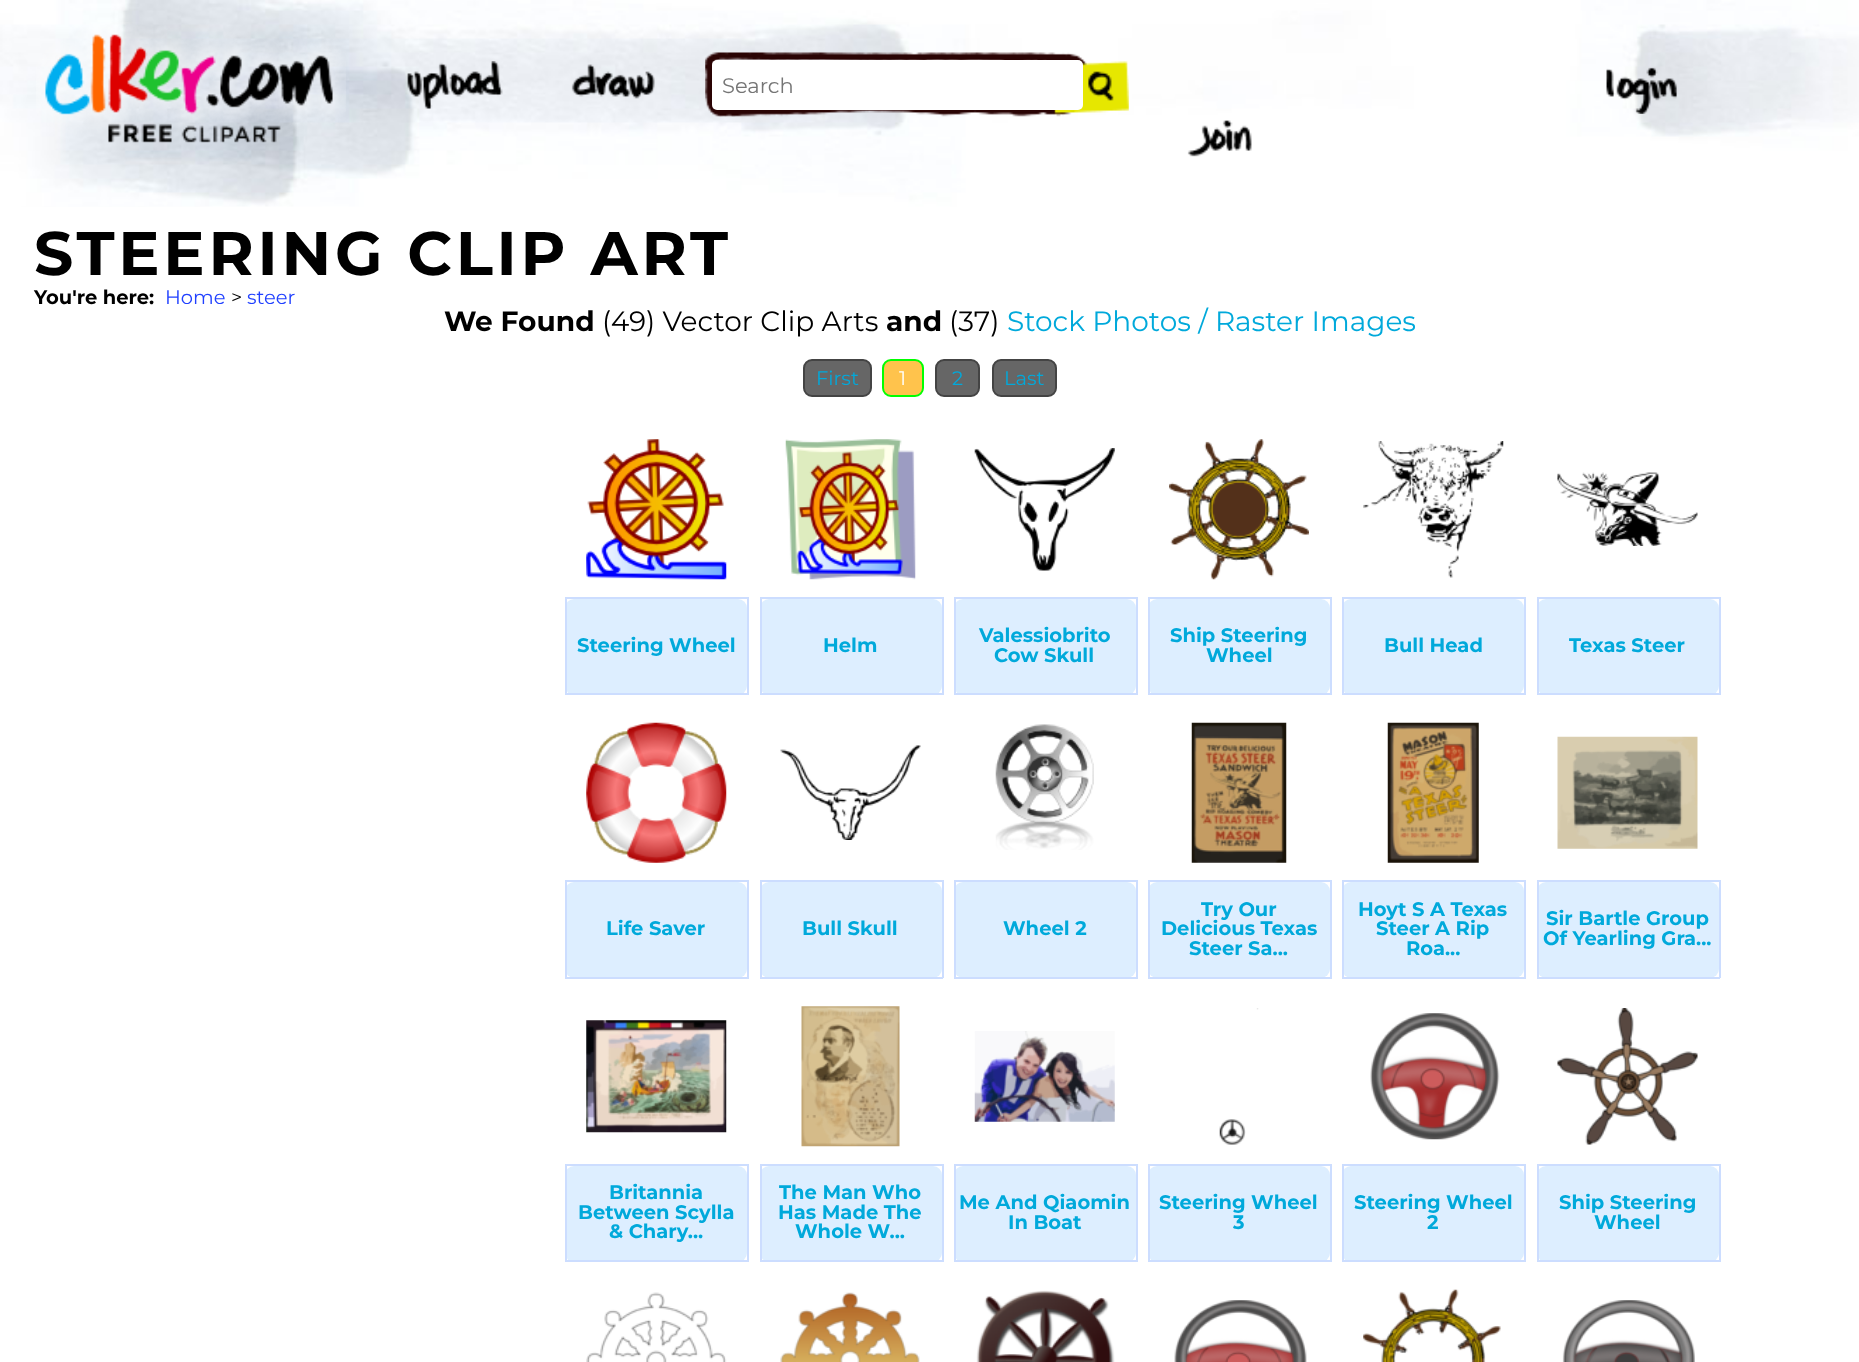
<svg xmlns="http://www.w3.org/2000/svg" width="1859" height="1362" viewBox="0 0 1859 1362">
  <style>
    .t1 { font: 21px Montserrat; fill: #757575; }
    .t2 { font: bold 61.6px Montserrat; letter-spacing: 3.75px; fill: #000; }
    .t3 { font: bold 19.5px Montserrat; fill: #000; }
    .t4 { font: 19.5px Montserrat; fill: #2040ff; }
    .t5 { font: 19.5px Montserrat; fill: #000; }
    .t6 { font: bold 28px Montserrat; fill: #000; }
    .t7 { font: 28px Montserrat; fill: #000; }
    .t8 { font: 28px Montserrat; fill: #00a9db; }
    .t9 { font: 19.5px Montserrat; fill: #00a9db; }
    .t10 { font: 19.5px Montserrat; fill: #fff; }
    .t11 { font: bold 19.5px Montserrat; fill: #00a9db; }
  </style>
  <rect width="100%" height="100%" fill="#fff"/>
  <image x="0" y="0" width="1859" height="207" href="images/1.png"/>
  <image x="36" y="22" width="310" height="121" href="images/2.png"/>
  <image x="407" y="61" width="96" height="48" href="images/3.png"/>
  <image x="571" y="64" width="84" height="35" href="images/4.png"/>
  <image x="705" y="52" width="424" height="65" href="images/5.png"/>
  <rect x="712" y="60" width="371" height="50" rx="5" fill="#fff"/>
  <text x="722" y="93" class="t1">Search</text>
  <image x="1606" y="67" width="71" height="47" href="images/6.png"/>
  <image x="1187" y="120" width="65" height="37" href="images/7.png"/>
  <text x="34" y="275" class="t2">STEERING CLIP ART</text>
  <text x="34" y="304" class="t3">You're here:</text>
  <text x="165" y="304" class="t4">Home</text>
  <text x="231" y="304" class="t5">&gt;</text>
  <text x="247" y="304" class="t4">steer</text>
  <text x="444" y="331" class="t6">We Found</text>
  <text x="602" y="331" class="t7">(49) Vector Clip Arts</text>
  <text x="886" y="331" class="t6">and</text>
  <text x="949" y="331" class="t7">(37)</text>
  <text x="1007" y="331" class="t8">Stock Photos / Raster Images</text>
  <rect x="804" y="360" width="67" height="36" rx="8" fill="#666" stroke="#444" stroke-width="2"/>
  <text x="816" y="385" class="t9">First</text>
  <rect x="883" y="360" width="40" height="36" rx="8" fill="#ffc34c" stroke="#0f0" stroke-width="2"/>
  <text x="899" y="385" class="t10">1</text>
  <rect x="936" y="360" width="43" height="36" rx="8" fill="#666" stroke="#444" stroke-width="2"/>
  <text x="952" y="385" class="t9">2</text>
  <rect x="993" y="360" width="63" height="36" rx="8" fill="#666" stroke="#444" stroke-width="2"/>
  <text x="1004" y="385" class="t9">Last</text>
  <image x="586" y="439" width="141" height="141" href="images/8.png"/>
  <rect x="565" y="599" width="182" height="96" rx="9" fill="#def"/>
  <rect x="565" y="597" width="184" height="2" fill="#cdf"/>
  <rect x="747" y="597" width="2" height="98" fill="#cdf"/>
  <rect x="565" y="693" width="184" height="2" fill="#cdf"/>
  <rect x="565" y="597" width="2" height="98" fill="#cdf"/>
  <text x="577" y="652" class="t11">Steering Wheel</text>
  <image x="785" y="439" width="131" height="141" href="images/9.png"/>
  <rect x="760" y="599" width="182" height="96" rx="9" fill="#def"/>
  <rect x="760" y="597" width="183" height="2" fill="#cdf"/>
  <rect x="942" y="597" width="2" height="98" fill="#cdf"/>
  <rect x="760" y="693" width="183" height="2" fill="#cdf"/>
  <rect x="760" y="597" width="2" height="98" fill="#cdf"/>
  <text x="823" y="652" class="t11">Helm</text>
  <image x="974" y="448" width="141" height="123" href="images/10.png"/>
  <rect x="954" y="599" width="182" height="96" rx="9" fill="#def"/>
  <rect x="954" y="597" width="184" height="2" fill="#cdf"/>
  <rect x="1136" y="597" width="2" height="98" fill="#cdf"/>
  <rect x="954" y="693" width="184" height="2" fill="#cdf"/>
  <rect x="954" y="597" width="2" height="98" fill="#cdf"/>
  <text x="979" y="642" class="t11">Valessiobrito</text>
  <text x="994" y="662" class="t11">Cow Skull</text>
  <image x="1169" y="439" width="140" height="141" href="images/11.png"/>
  <rect x="1148" y="599" width="182" height="96" rx="9" fill="#def"/>
  <rect x="1148" y="597" width="184" height="2" fill="#cdf"/>
  <rect x="1330" y="597" width="2" height="98" fill="#cdf"/>
  <rect x="1148" y="693" width="184" height="2" fill="#cdf"/>
  <rect x="1148" y="597" width="2" height="98" fill="#cdf"/>
  <text x="1170" y="642" class="t11">Ship Steering</text>
  <text x="1206" y="662" class="t11">Wheel</text>
  <image x="1363" y="441" width="141" height="137" href="images/12.png"/>
  <rect x="1342" y="599" width="182" height="96" rx="9" fill="#def"/>
  <rect x="1342" y="597" width="184" height="2" fill="#cdf"/>
  <rect x="1524" y="597" width="2" height="98" fill="#cdf"/>
  <rect x="1342" y="693" width="184" height="2" fill="#cdf"/>
  <rect x="1342" y="597" width="2" height="98" fill="#cdf"/>
  <text x="1384" y="652" class="t11">Bull Head</text>
  <image x="1557" y="472" width="141" height="74" href="images/13.png"/>
  <rect x="1537" y="599" width="182" height="96" rx="9" fill="#def"/>
  <rect x="1537" y="597" width="183" height="2" fill="#cdf"/>
  <rect x="1719" y="597" width="2" height="98" fill="#cdf"/>
  <rect x="1537" y="693" width="183" height="2" fill="#cdf"/>
  <rect x="1537" y="597" width="2" height="98" fill="#cdf"/>
  <text x="1569" y="652" class="t11">Texas Steer</text>
  <image x="586" y="722" width="141" height="141" href="images/14.png"/>
  <rect x="565" y="882" width="182" height="96" rx="9" fill="#def"/>
  <rect x="565" y="880" width="184" height="2" fill="#cdf"/>
  <rect x="747" y="880" width="2" height="98" fill="#cdf"/>
  <rect x="565" y="977" width="184" height="2" fill="#cdf"/>
  <rect x="565" y="880" width="2" height="98" fill="#cdf"/>
  <text x="606" y="935" class="t11">Life Saver</text>
  <image x="780" y="745" width="141" height="95" href="images/15.png"/>
  <rect x="760" y="882" width="182" height="96" rx="9" fill="#def"/>
  <rect x="760" y="880" width="183" height="2" fill="#cdf"/>
  <rect x="942" y="880" width="2" height="98" fill="#cdf"/>
  <rect x="760" y="977" width="183" height="2" fill="#cdf"/>
  <rect x="760" y="880" width="2" height="98" fill="#cdf"/>
  <text x="802" y="935" class="t11">Bull Skull</text>
  <image x="995" y="724" width="99" height="126" href="images/16.png"/>
  <rect x="954" y="882" width="182" height="96" rx="9" fill="#def"/>
  <rect x="954" y="880" width="184" height="2" fill="#cdf"/>
  <rect x="1136" y="880" width="2" height="98" fill="#cdf"/>
  <rect x="954" y="977" width="184" height="2" fill="#cdf"/>
  <rect x="954" y="880" width="2" height="98" fill="#cdf"/>
  <text x="1003" y="935" class="t11">Wheel 2</text>
  <image x="1191" y="722" width="96" height="141" href="images/17.png"/>
  <rect x="1148" y="882" width="182" height="96" rx="9" fill="#def"/>
  <rect x="1148" y="880" width="184" height="2" fill="#cdf"/>
  <rect x="1330" y="880" width="2" height="98" fill="#cdf"/>
  <rect x="1148" y="977" width="184" height="2" fill="#cdf"/>
  <rect x="1148" y="880" width="2" height="98" fill="#cdf"/>
  <text x="1201" y="916" class="t11">Try Our</text>
  <text x="1161" y="935" class="t11">Delicious Texas</text>
  <text x="1189" y="955" class="t11">Steer Sa...</text>
  <image x="1387" y="722" width="92" height="141" href="images/18.png"/>
  <rect x="1342" y="882" width="182" height="96" rx="9" fill="#def"/>
  <rect x="1342" y="880" width="184" height="2" fill="#cdf"/>
  <rect x="1524" y="880" width="2" height="98" fill="#cdf"/>
  <rect x="1342" y="977" width="184" height="2" fill="#cdf"/>
  <rect x="1342" y="880" width="2" height="98" fill="#cdf"/>
  <text x="1358" y="916" class="t11">Hoyt S A Texas</text>
  <text x="1376" y="935" class="t11">Steer A Rip</text>
  <text x="1406" y="955" class="t11">Roa...</text>
  <image x="1557" y="736" width="141" height="113" href="images/19.png"/>
  <rect x="1537" y="882" width="182" height="96" rx="9" fill="#def"/>
  <rect x="1537" y="880" width="183" height="2" fill="#cdf"/>
  <rect x="1719" y="880" width="2" height="98" fill="#cdf"/>
  <rect x="1537" y="977" width="183" height="2" fill="#cdf"/>
  <rect x="1537" y="880" width="2" height="98" fill="#cdf"/>
  <text x="1546" y="925" class="t11">Sir Bartle Group</text>
  <text x="1543" y="945" class="t11">Of Yearling Gra...</text>
  <image x="586" y="1020" width="141" height="113" href="images/20.png"/>
  <rect x="565" y="1166" width="182" height="96" rx="9" fill="#def"/>
  <rect x="565" y="1164" width="184" height="2" fill="#cdf"/>
  <rect x="747" y="1164" width="2" height="98" fill="#cdf"/>
  <rect x="565" y="1260" width="184" height="2" fill="#cdf"/>
  <rect x="565" y="1164" width="2" height="98" fill="#cdf"/>
  <text x="609" y="1199" class="t11">Britannia</text>
  <text x="578" y="1219" class="t11">Between Scylla</text>
  <text x="609" y="1238" class="t11">&amp; Chary...</text>
  <image x="801" y="1006" width="99" height="141" href="images/21.png"/>
  <rect x="760" y="1166" width="182" height="96" rx="9" fill="#def"/>
  <rect x="760" y="1164" width="183" height="2" fill="#cdf"/>
  <rect x="942" y="1164" width="2" height="98" fill="#cdf"/>
  <rect x="760" y="1260" width="183" height="2" fill="#cdf"/>
  <rect x="760" y="1164" width="2" height="98" fill="#cdf"/>
  <text x="779" y="1199" class="t11">The Man Who</text>
  <text x="778" y="1219" class="t11">Has Made The</text>
  <text x="795" y="1238" class="t11">Whole W...</text>
  <image x="974" y="1031" width="141" height="91" href="images/22.png"/>
  <rect x="954" y="1166" width="182" height="96" rx="9" fill="#def"/>
  <rect x="954" y="1164" width="184" height="2" fill="#cdf"/>
  <rect x="1136" y="1164" width="2" height="98" fill="#cdf"/>
  <rect x="954" y="1260" width="184" height="2" fill="#cdf"/>
  <rect x="954" y="1164" width="2" height="98" fill="#cdf"/>
  <text x="959" y="1209" class="t11">Me And Qiaomin</text>
  <text x="1008" y="1229" class="t11">In Boat</text>
  <image x="1219" y="1008" width="40" height="137" href="images/23.png"/>
  <rect x="1148" y="1166" width="182" height="96" rx="9" fill="#def"/>
  <rect x="1148" y="1164" width="184" height="2" fill="#cdf"/>
  <rect x="1330" y="1164" width="2" height="98" fill="#cdf"/>
  <rect x="1148" y="1260" width="184" height="2" fill="#cdf"/>
  <rect x="1148" y="1164" width="2" height="98" fill="#cdf"/>
  <text x="1159" y="1209" class="t11">Steering Wheel</text>
  <text x="1233" y="1229" class="t11">3</text>
  <image x="1370" y="1013" width="130" height="127" href="images/24.png"/>
  <rect x="1342" y="1166" width="182" height="96" rx="9" fill="#def"/>
  <rect x="1342" y="1164" width="184" height="2" fill="#cdf"/>
  <rect x="1524" y="1164" width="2" height="98" fill="#cdf"/>
  <rect x="1342" y="1260" width="184" height="2" fill="#cdf"/>
  <rect x="1342" y="1164" width="2" height="98" fill="#cdf"/>
  <text x="1354" y="1209" class="t11">Steering Wheel</text>
  <text x="1427" y="1229" class="t11">2</text>
  <image x="1557" y="1008" width="141" height="137" href="images/25.png"/>
  <rect x="1537" y="1166" width="182" height="96" rx="9" fill="#def"/>
  <rect x="1537" y="1164" width="183" height="2" fill="#cdf"/>
  <rect x="1719" y="1164" width="2" height="98" fill="#cdf"/>
  <rect x="1537" y="1260" width="183" height="2" fill="#cdf"/>
  <rect x="1537" y="1164" width="2" height="98" fill="#cdf"/>
  <text x="1559" y="1209" class="t11">Ship Steering</text>
  <text x="1594" y="1229" class="t11">Wheel</text>
  <image x="586" y="1292" width="141" height="70" href="images/26.png"/>
  <image x="780" y="1292" width="140" height="70" href="images/27.png"/>
  <image x="976" y="1290" width="139" height="72" href="images/28.png"/>
  <image x="1174" y="1300" width="133" height="62" href="images/29.png"/>
  <image x="1363" y="1289" width="138" height="73" href="images/30.png"/>
  <image x="1562" y="1300" width="133" height="62" href="images/31.png"/>
</svg>
